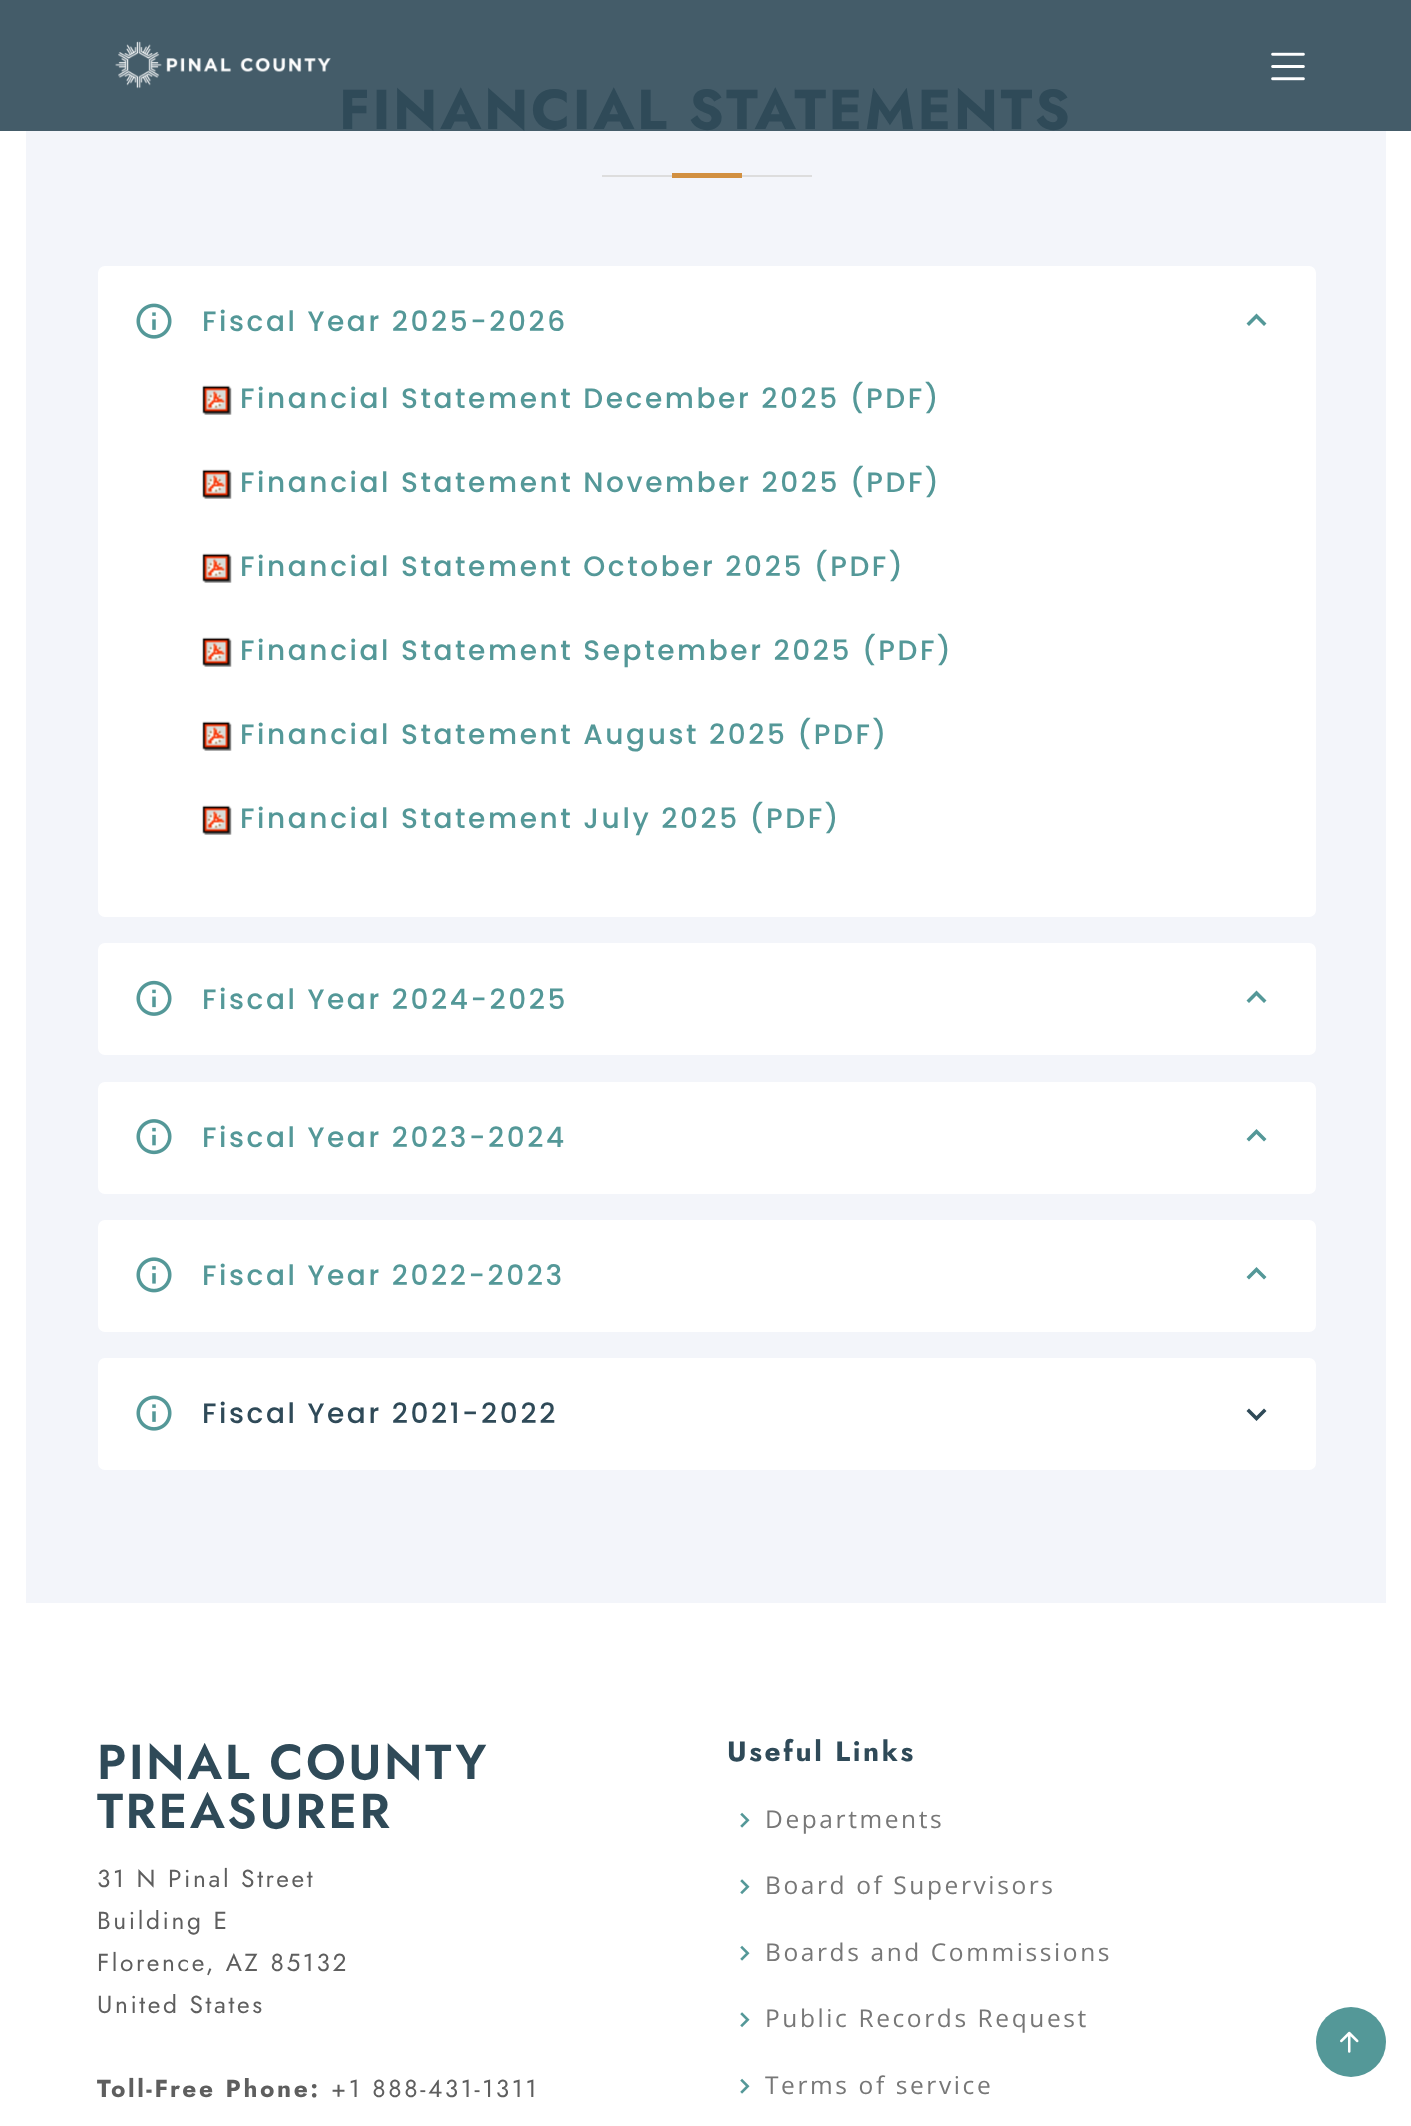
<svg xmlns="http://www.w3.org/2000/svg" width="1411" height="2126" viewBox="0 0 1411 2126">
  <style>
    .t1 { font: bold 56px Jost; letter-spacing: 2.6px; fill: #2f4a58; }
    .t2 { font: 500 28px Poppins; letter-spacing: 2.6px; fill: #549898; }
    .t3 { font: 500 28px Poppins; letter-spacing: 2.6px; fill: #2f4a58; }
    .t4 { font: 600 49px Jost; letter-spacing: 2.6px; fill: #2f4a58; }
    .t5 { font: 24.5px Jost; letter-spacing: 2.6px; fill: #5e5e5e; }
    .t6 { font: bold 24.5px Jost; letter-spacing: 2.6px; fill: #5e5e5e; }
    .t7 { font: bold 28px Jost; letter-spacing: 2.6px; fill: #2f4a58; }
    .t8 { font: 24.5px Open Sans; letter-spacing: 2.6px; fill: #777; }
  </style>
  <rect width="100%" height="100%" fill="#fff"/>
  <rect x="0" y="0" width="1411" height="131" fill="#445c69"/>
  <image x="115" y="41" width="216" height="48" href="images/1.png"/>
  <image x="1271" y="52" width="34" height="29" href="images/2.png"/>
  <rect x="26" y="131" width="1360" height="1472" fill="#f3f5fa"/>
  <text x="339" y="129" class="t1">FINANCIAL STATEMENTS</text>
  <rect x="602" y="175" width="210" height="2" fill="#ddd"/>
  <rect x="672" y="173" width="70" height="5" fill="#d29040"/>
  <rect x="98" y="266" width="1218" height="651" rx="7" fill="#fff"/>
  <image x="136" y="303" width="36" height="36" href="images/3.png"/>
  <text x="202" y="331" class="t2">Fiscal Year 2025-2026</text>
  <path d="M1246.5 323.5L1249 326L1256.5 318.5L1264 326L1266.5 323.5L1256.5 313.5Z" fill="#549898"/>
  <image x="202" y="385" width="30" height="30" href="images/4.png"/>
  <text x="240" y="408" class="t2">Financial Statement December 2025 (PDF)</text>
  <image x="202" y="469" width="30" height="30" href="images/4.png"/>
  <text x="240" y="492" class="t2">Financial Statement November 2025 (PDF)</text>
  <image x="202" y="553" width="30" height="30" href="images/4.png"/>
  <text x="240" y="576" class="t2">Financial Statement October 2025 (PDF)</text>
  <image x="202" y="637" width="30" height="30" href="images/4.png"/>
  <text x="240" y="660" class="t2">Financial Statement September 2025 (PDF)</text>
  <image x="202" y="721" width="30" height="30" href="images/4.png"/>
  <text x="240" y="744" class="t2">Financial Statement August 2025 (PDF)</text>
  <image x="202" y="805" width="30" height="30" href="images/5.png"/>
  <text x="240" y="828" class="t2">Financial Statement July 2025 (PDF)</text>
  <rect x="98" y="943" width="1218" height="112" rx="7" fill="#fff"/>
  <image x="136" y="980" width="36" height="36" href="images/6.png"/>
  <text x="202" y="1009" class="t2">Fiscal Year 2024-2025</text>
  <path d="M1246.5 1000.5L1249 1003L1256.5 995.5L1264 1003L1266.5 1000.5L1256.5 990.5Z" fill="#549898"/>
  <rect x="98" y="1082" width="1218" height="112" rx="7" fill="#fff"/>
  <image x="136" y="1119" width="36" height="36" href="images/7.png"/>
  <text x="202" y="1147" class="t2">Fiscal Year 2023-2024</text>
  <path d="M1246.5 1139L1249 1141.5L1256.5 1134L1264 1141.5L1266.5 1139L1256.5 1129Z" fill="#549898"/>
  <rect x="98" y="1220" width="1218" height="112" rx="7" fill="#fff"/>
  <image x="136" y="1257" width="36" height="36" href="images/8.png"/>
  <text x="202" y="1285" class="t2">Fiscal Year 2022-2023</text>
  <path d="M1246.5 1277L1249 1279.5L1256.5 1272L1264 1279.5L1266.5 1277L1256.5 1267Z" fill="#549898"/>
  <rect x="98" y="1358" width="1218" height="112" rx="7" fill="#fff"/>
  <image x="136" y="1395" width="36" height="36" href="images/3.png"/>
  <text x="202" y="1423" class="t3">Fiscal Year 2021-2022</text>
  <path d="M1264 1408.5L1256.5 1416L1249 1408.5L1246.5 1411L1256.5 1421L1266.5 1411Z" fill="#2f4a58"/>
  <text x="97" y="1779" class="t4">PINAL COUNTY</text>
  <text x="97" y="1828" class="t4">TREASURER</text>
  <text x="97" y="1887" class="t5">31 N Pinal Street</text>
  <text x="97" y="1929" class="t5">Building E</text>
  <text x="97" y="1971" class="t5">Florence, AZ 85132</text>
  <text x="97" y="2013" class="t5">United States</text>
  <text x="97" y="2097" class="t6">Toll-Free Phone:</text>
  <text x="331" y="2097" class="t5">+1 888-431-1311</text>
  <text x="727" y="1761" class="t7">Useful Links</text>
  <image x="740" y="1812" width="10" height="16" href="images/9.png"/>
  <text x="765" y="1828" class="t8">Departments</text>
  <image x="740" y="1879" width="10" height="16" href="images/10.png"/>
  <text x="765" y="1894" class="t8">Board of Supervisors</text>
  <image x="740" y="1945" width="10" height="16" href="images/9.png"/>
  <text x="765" y="1961" class="t8">Boards and Commissions</text>
  <image x="740" y="2012" width="10" height="16" href="images/10.png"/>
  <text x="765" y="2027" class="t8">Public Records Request</text>
  <image x="740" y="2078" width="10" height="16" href="images/9.png"/>
  <text x="765" y="2094" class="t8">Terms of service</text>
  <circle cx="1351" cy="2042" r="35" fill="#549898"/>
  <image x="1340" y="2031" width="19" height="22" href="images/11.png"/>
</svg>
